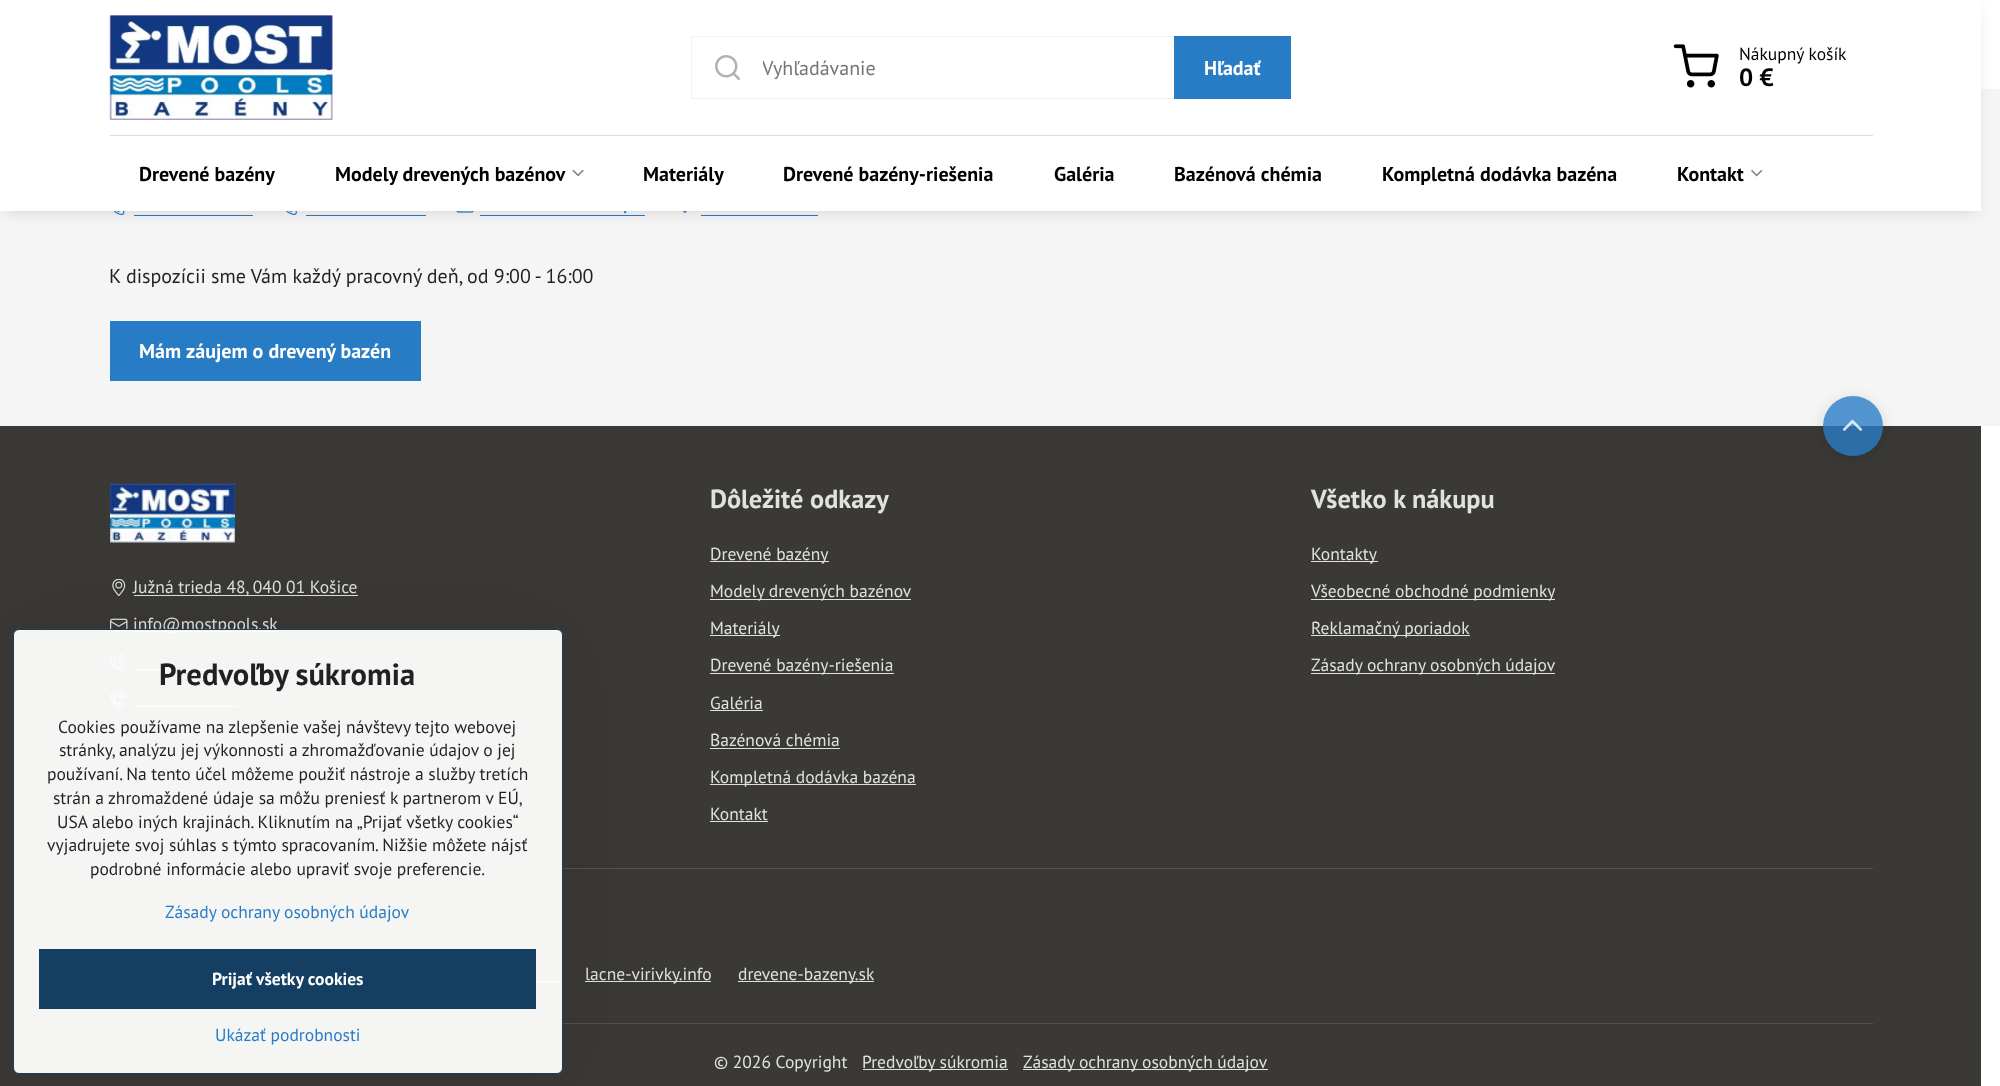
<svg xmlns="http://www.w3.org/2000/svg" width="2000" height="1086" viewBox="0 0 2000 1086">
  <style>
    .t1 { font: 20px PT Sans; fill: #287cc5; }
    .t2 { font: 20px PT Sans; fill: #757575; }
    .t3 { font: bold 20px PT Sans; fill: #fff; }
    .t4 { font: 17.5px PT Sans; fill: #000; }
    .t5 { font: bold 25px PT Sans; fill: #000; }
    .t6 { font: bold 20px PT Sans; fill: #000; }
    .t7 { font: 20px PT Sans; fill: #1f2122; }
    .t8 { font: 17.5px PT Sans; fill: #e1e1e0; }
    .t9 { font: bold 26.25px PT Sans; fill: #e1e1e0; }
    .t10 { font: bold 30.6px PT Sans; fill: #1f2122; }
    .t11 { font: 17.5px PT Sans; fill: #1f2122; }
    .t12 { font: 17.5px PT Sans; fill: #287cc5; }
    .t13 { font: bold 17.5px PT Sans; fill: #fff; }
  </style>
  <defs>
    <clipPath id="clip1"><rect x="763" y="55" width="396" height="25"/></clipPath>
    <clipPath id="clip2"><path d="M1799 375H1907V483H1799ZM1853 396C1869.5 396 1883 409.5 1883 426C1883 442.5 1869.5 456 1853 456C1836.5 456 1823 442.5 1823 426C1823 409.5 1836.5 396 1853 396Z" clip-rule="evenodd"/></clipPath>
    <clipPath id="clip3"><path d="M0 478H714V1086H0ZM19 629H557C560.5 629 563 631.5 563 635V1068C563 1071.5 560.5 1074 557 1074H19C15.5 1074 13 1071.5 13 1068V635C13 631.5 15.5 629 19 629Z" clip-rule="evenodd"/></clipPath>
  </defs>
  <rect width="100%" height="100%" fill="#fff"/>
  <rect x="0" y="211" width="1873" height="50" fill="#f5f5f5"/>
  <rect x="1873" y="89" width="127" height="172" fill="#f5f5f5"/>
  <image x="113" y="211" width="12" height="4" href="images/6.png"/>
  <rect x="134" y="215" width="119" height="1" fill="#287cc5"/>
  <image x="286" y="211" width="11" height="4" href="images/7.png"/>
  <rect x="306" y="215" width="120" height="1" fill="#287cc5"/>
  <image x="456" y="211" width="18" height="2" href="images/8.png"/>
  <rect x="480" y="215" width="165" height="1" fill="#287cc5"/>
  <image x="683" y="211" width="4" height="2" href="images/9.png"/>
  <rect x="701" y="215" width="117" height="1" fill="#287cc5"/>
  <rect x="5" y="10" width="1971" height="201" fill="#00001426" filter="blur(7.5px)"/>
  <text x="623" y="213" class="t1">.</text>
  <rect x="0" y="0" width="1981" height="211" fill="#fff"/>
  <image x="109" y="15" width="224" height="105" href="images/1.png"/>
  <rect x="691.5" y="36.5" width="599" height="62" fill="none" stroke="#f2f2f2"/>
  <image x="715" y="55" width="25" height="25" href="images/2.png"/>
  <g clip-path="url(#clip1)">
    <text x="762" y="75" class="t2">Vyhľadávanie</text>
  </g>
  <rect x="1174" y="36" width="117" height="63" fill="#287cc5"/>
  <text x="1204" y="75" class="t3">Hľadať</text>
  <image x="1673" y="44" width="46" height="44" href="images/3.png"/>
  <text x="1739" y="60" class="t4">Nákupný košík</text>
  <text x="1739" y="86" class="t5">0 €</text>
  <rect x="110" y="135" width="1763" height="1" fill="#ddd"/>
  <text x="139" y="181" class="t6">Drevené bazény</text>
  <text x="335" y="181" class="t6">Modely drevených bazénov</text>
  <image x="572" y="169" width="12" height="8" href="images/4.png"/>
  <text x="643" y="181" class="t6">Materiály</text>
  <text x="783" y="181" class="t6">Drevené bazény-riešenia</text>
  <text x="1054" y="181" class="t6">Galéria</text>
  <text x="1174" y="181" class="t6">Bazénová chémia</text>
  <text x="1382" y="181" class="t6">Kompletná dodávka bazéna</text>
  <text x="1677" y="181" class="t6">Kontakt</text>
  <image x="1751" y="170" width="12" height="7" href="images/5.png"/>
  <path d="M-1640 261V426H110V261H123Z" fill="#f5f5f5"/>
  <path d="M1860 261H1872V426H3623V261Z" fill="#f5f5f5"/>
  <rect x="110" y="261" width="1762" height="165" fill="#f5f5f5"/>
  <text x="109" y="283" class="t7">K dispozícii sme Vám každý pracovný deň, od 9:00 - 16:00</text>
  <rect x="110" y="321" width="311" height="60" fill="#287cc5"/>
  <text x="139" y="358" class="t3">Mám záujem o drevený bazén</text>
  <rect x="0" y="426" width="1981" height="660" fill="#3a3935"/>
  <g clip-path="url(#clip2)">
    <rect x="1823" y="399" width="60" height="60" rx="30" fill="#0000141f" filter="blur(7.5px)"/>
  </g>
  <circle cx="1853" cy="426" r="30" fill="#287cc5cc"/>
  <image x="1842" y="419" width="21" height="12" href="images/10.png"/>
  <image x="110" y="483" width="125" height="60" href="images/11.png"/>
  <image x="112" y="579" width="14" height="17" href="images/12.png"/>
  <rect x="134" y="595" width="224" height="1" fill="#e1e1e0"/>
  <text x="133" y="593" class="t8">Južná trieda 48, 040 01 Košice</text>
  <image x="110" y="618" width="18" height="14" href="images/13.png"/>
  <rect x="134" y="631" width="144" height="1" fill="#e1e1e0"/>
  <text x="133" y="630" class="t8">info@mostpools.sk</text>
  <image x="110" y="654" width="18" height="17" href="images/14.png"/>
  <rect x="134" y="669" width="104" height="1" fill="#e1e1e0"/>
  <image x="110" y="690" width="18" height="18" href="images/15.png"/>
  <rect x="134" y="706" width="104" height="1" fill="#e1e1e0"/>
  <text x="710" y="508" class="t9">Dôležité odkazy</text>
  <rect x="710" y="561" width="119" height="1" fill="#e1e1e0"/>
  <text x="710" y="560" class="t8">Drevené bazény</text>
  <rect x="710" y="599" width="201" height="1" fill="#e1e1e0"/>
  <text x="710" y="597" class="t8">Modely drevených bazénov</text>
  <rect x="710" y="635" width="70" height="1" fill="#e1e1e0"/>
  <text x="710" y="634" class="t8">Materiály</text>
  <rect x="710" y="673" width="184" height="1" fill="#e1e1e0"/>
  <text x="710" y="671" class="t8">Drevené bazény-riešenia</text>
  <text x="710" y="709" class="t8">Galéria</text>
  <rect x="710" y="710" width="53" height="1" fill="#e1e1e0"/>
  <text x="710" y="746" class="t8">Bazénová chémia</text>
  <rect x="710" y="748" width="130" height="1" fill="#e1e1e0"/>
  <rect x="710" y="784" width="206" height="1" fill="#e1e1e0"/>
  <text x="710" y="783" class="t8">Kompletná dodávka bazéna</text>
  <text x="710" y="820" class="t8">Kontakt</text>
  <rect x="710" y="821" width="58" height="1" fill="#e1e1e0"/>
  <text x="1311" y="508" class="t9">Všetko k nákupu</text>
  <rect x="1311" y="561" width="67" height="1" fill="#e1e1e0"/>
  <text x="1311" y="560" class="t8">Kontakty</text>
  <rect x="1311" y="599" width="244" height="1" fill="#e1e1e0"/>
  <text x="1311" y="597" class="t8">Všeobecné obchodné podmienky</text>
  <rect x="1311" y="635" width="159" height="1" fill="#e1e1e0"/>
  <text x="1311" y="634" class="t8">Reklamačný poriadok</text>
  <rect x="1311" y="673" width="244" height="1" fill="#e1e1e0"/>
  <text x="1311" y="671" class="t8">Zásady ochrany osobných údajov</text>
  <rect x="110" y="868" width="1763" height="1" fill="#53524f"/>
  <rect x="536" y="981" width="23" height="1" fill="#e1e1e0"/>
  <rect x="585" y="981" width="126" height="1" fill="#e1e1e0"/>
  <text x="585" y="980" class="t8">lacne-virivky.info</text>
  <rect x="738" y="981" width="136" height="1" fill="#e1e1e0"/>
  <text x="738" y="980" class="t8">drevene-bazeny.sk</text>
  <rect x="110" y="1023" width="1763" height="1" fill="#53524f"/>
  <text x="714" y="1068" class="t8">© 2026 Copyright</text>
  <rect x="863" y="1069" width="145" height="1" fill="#e1e1e0"/>
  <text x="862" y="1068" class="t8">Predvoľby súkromia</text>
  <rect x="1023" y="1069" width="245" height="1" fill="#e1e1e0"/>
  <text x="1023" y="1068" class="t8">Zásady ochrany osobných údajov</text>
  <g clip-path="url(#clip3)">
    <rect x="13" y="629" width="550" height="445" rx="6" fill="#0000001a" filter="blur(50px)"/>
  </g>
  <rect x="13.5" y="629.5" width="549" height="444" rx="5.5" fill="#fffffff2" stroke="#143e62"/>
  <text x="159" y="685" class="t10">Predvoľby súkromia</text>
  <text x="58" y="733" class="t11">Cookies používame na zlepšenie vašej návštevy tejto webovej</text>
  <text x="59" y="756" class="t11">stránky, analýzu jej výkonnosti a zhromažďovanie údajov o jej</text>
  <text x="47" y="780" class="t11">používaní. Na tento účel môžeme použiť nástroje a služby tretích</text>
  <text x="53" y="804" class="t11">strán a zhromaždené údaje sa môžu preniesť k partnerom v EÚ,</text>
  <text x="57" y="828" class="t11">USA alebo iných krajinách. Kliknutím na „Prijať všetky cookies“</text>
  <text x="47" y="851" class="t11">vyjadrujete svoj súhlas s týmto spracovaním. Nižšie môžete nájsť</text>
  <text x="90" y="875" class="t11">podrobné informácie alebo upraviť svoje preferencie.</text>
  <text x="165" y="918" class="t12">Zásady ochrany osobných údajov</text>
  <rect x="39" y="949" width="497" height="60" fill="#143e62"/>
  <text x="212" y="985" class="t13">Prijať všetky cookies</text>
  <text x="215" y="1041" class="t12">Ukázať podrobnosti</text>
</svg>
